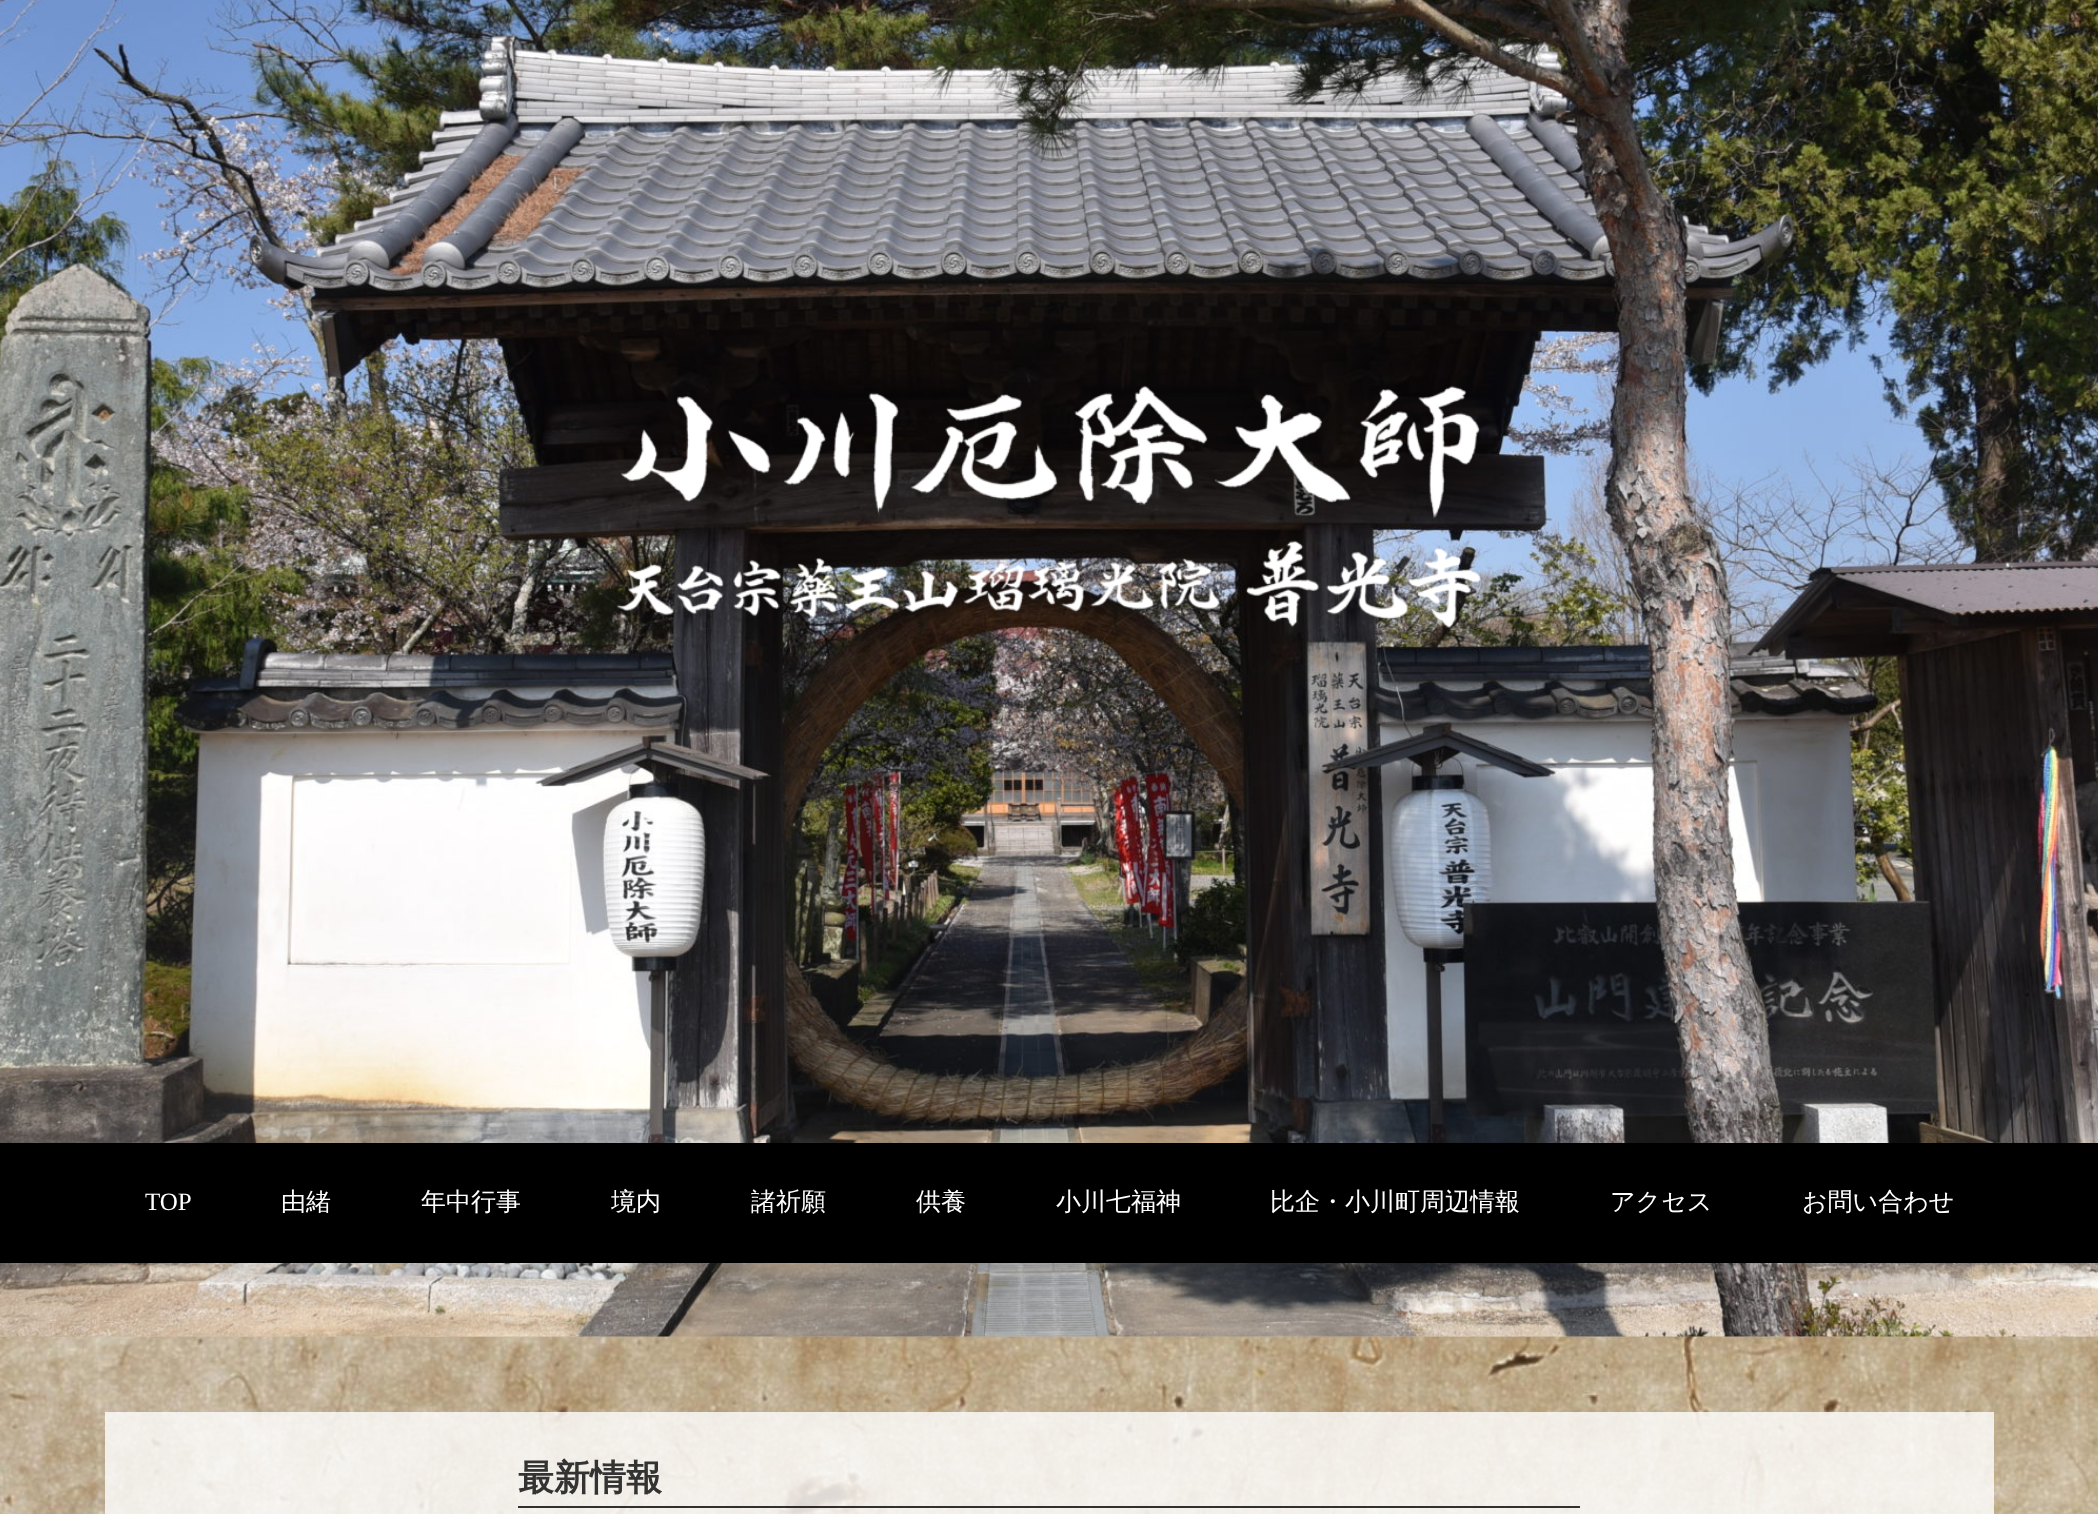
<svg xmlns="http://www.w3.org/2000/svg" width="2098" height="1514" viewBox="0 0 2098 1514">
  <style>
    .t1 { font: 25px Liberation Serif; fill: #fff; }
    .t2 { font: 500 25px WenQuanYi Zen Hei; fill: #fff; }
    .t3 { font: bold 36px WenQuanYi Zen Hei; fill: #333; }
  </style>
  <rect width="100%" height="100%" fill="#fff"/>
  <image x="0" y="0" width="2098" height="1337" href="images/1.png"/>
  <image x="616" y="385" width="865" height="243" href="images/2.png"/>
  <rect x="0" y="1143" width="2098" height="120" fill="#000"/>
  <text x="145" y="1210" class="t1">TOP</text>
  <text x="281" y="1210" class="t2">由緒</text>
  <text x="421" y="1210" class="t2">年中行事</text>
  <text x="611" y="1210" class="t2">境内</text>
  <text x="751" y="1210" class="t2">諸祈願</text>
  <text x="916" y="1210" class="t2">供養</text>
  <text x="1056" y="1210" class="t2">小川七福神</text>
  <text x="1270" y="1210" class="t2">比企・小川町周辺情報</text>
  <text x="1610" y="1210" class="t2">アクセス</text>
  <text x="1802" y="1210" class="t2">お問い合わせ</text>
  <image x="0" y="1336" width="2098" height="178" href="images/3.png"/>
  <rect x="105" y="1412" width="1889" height="102" fill="#ffffffcc"/>
  <rect x="518" y="1506" width="1062" height="2" fill="#000000cc"/>
  <text x="518" y="1490" class="t3">最新情報</text>
</svg>
